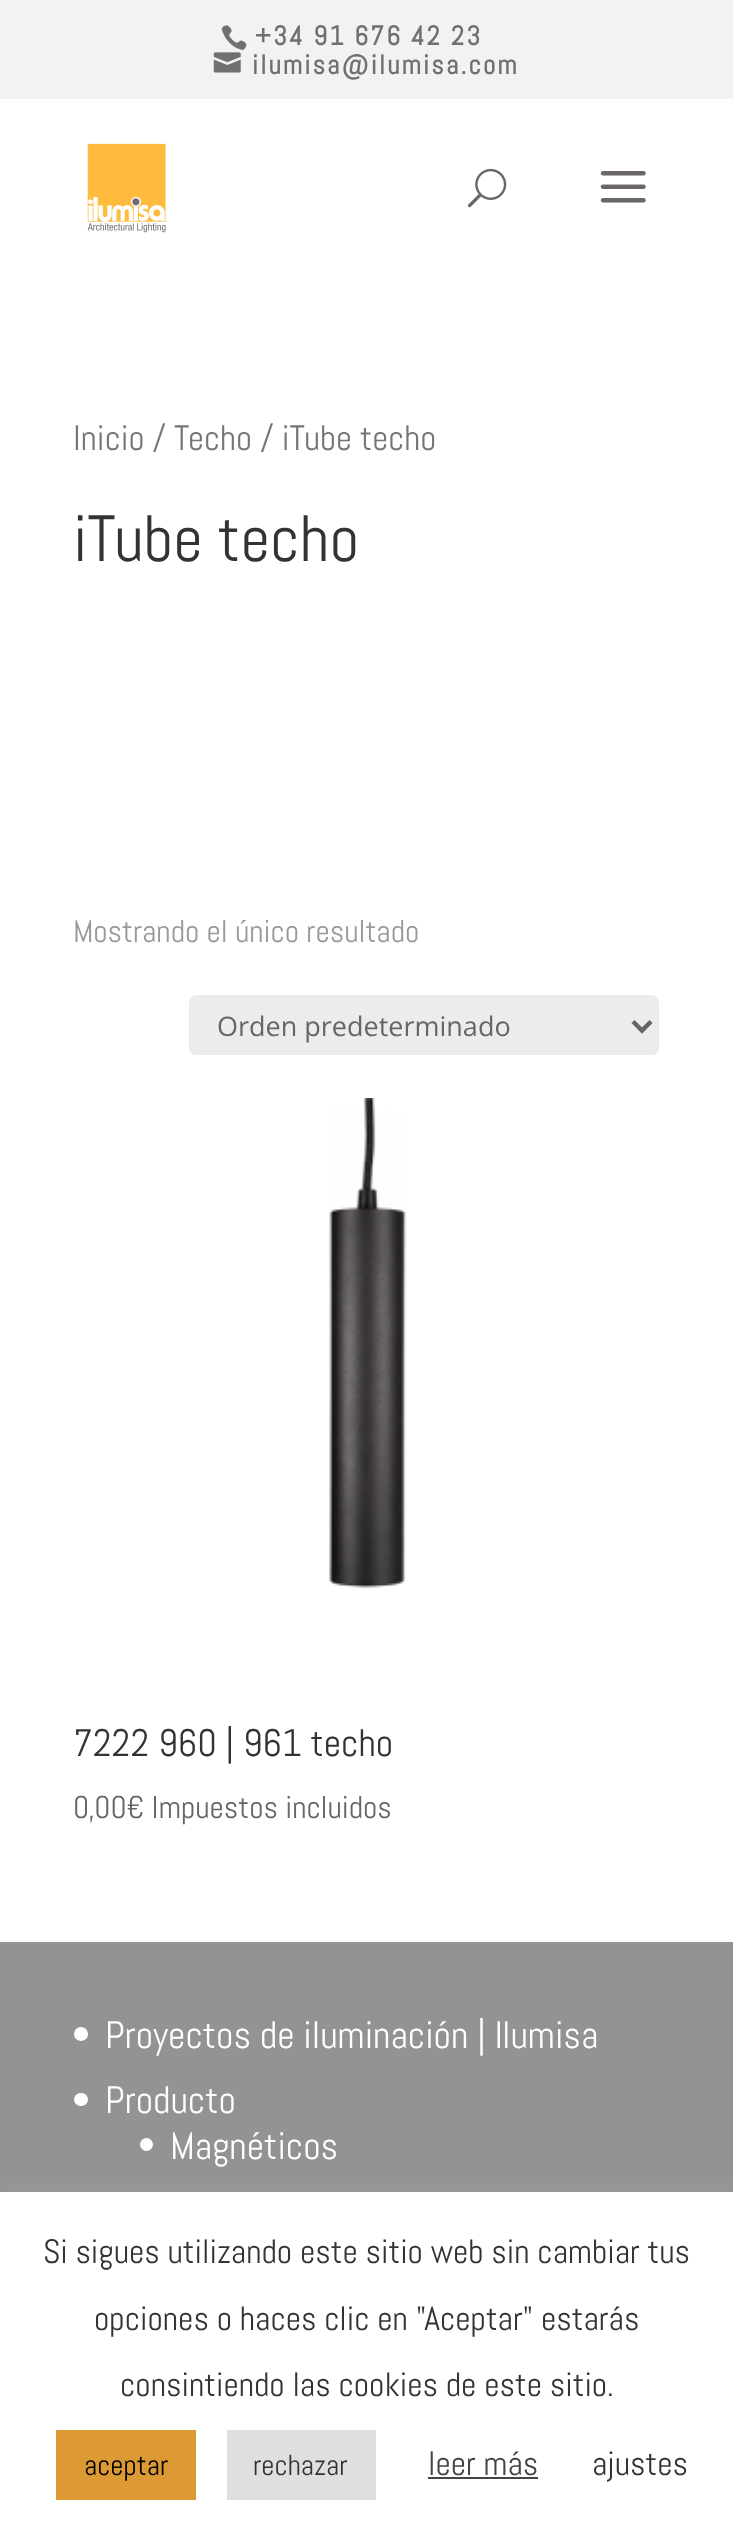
<svg xmlns="http://www.w3.org/2000/svg" width="733" height="2537" viewBox="0 0 733 2537">
  <style>
    .t1 { font: bold 27px Abel; letter-spacing: 2.25px; fill: #707070; }
    .t2 { font: 35.25px Abel; fill: #767676; }
    .t3 { font: 65.25px Abel; fill: #333; }
    .t4 { font: 31.5px Abel; fill: #999; }
    .t5 { font: 27px Open Sans; fill: #666; }
    .t6 { font: 38.25px Abel; fill: #333; }
    .t7 { font: 31.5px Abel; fill: #666; }
    .t8 { font: 38.25px Abel; fill: #fff; }
    .t9 { font: 33.75px Abel; fill: #333; }
    .t10 { font: 29px Abel; fill: #000; }
    .t11 { font: 29px Abel; fill: #333; }
    .t12 { font: 33.75px Abel; fill: #444; }
  </style>
  <rect width="100%" height="100%" fill="#fff"/>
  <rect x="0" y="0" width="733" height="99" fill="#f2f2f2"/>
  <image x="221" y="25" width="26" height="25" href="images/1.png"/>
  <text x="255" y="45" class="t1">+34 91 676 42 23</text>
  <image x="213" y="52" width="28" height="21" href="images/2.png"/>
  <text x="252" y="74" class="t1">ilumisa@ilumisa.com</text>
  <image x="87" y="143" width="79" height="90" href="images/3.png"/>
  <image x="467" y="168" width="40" height="40" href="images/4.png"/>
  <image x="600" y="171" width="46" height="32" href="images/5.png"/>
  <text x="73" y="450" class="t2">Inicio / Techo / iTube techo</text>
  <text x="73" y="561" class="t3">iTube techo</text>
  <text x="73" y="942" class="t4">Mostrando el único resultado</text>
  <rect x="189" y="995" width="470" height="60" rx="7" fill="#ececec"/>
  <path d="M633 1021.5L642 1030.5L651 1021.5" fill="none" stroke="#666" stroke-width="4.5"/>
  <text x="217" y="1036" class="t5">Orden predeterminado</text>
  <image x="328" y="1098" width="79" height="492" href="images/6.png"/>
  <text x="73" y="1756" class="t6">7222 960 | 961 techo</text>
  <text x="73" y="1818" class="t7">0,00€ Impuestos incluidos</text>
  <rect x="0" y="1942" width="733" height="250" fill="#939393"/>
  <circle cx="81" cy="2034" r="7" fill="#fff"/>
  <text x="105" y="2048" class="t8">Proyectos de iluminación | Ilumisa</text>
  <rect x="74" y="2093" width="14" height="13" rx="6.5" fill="#fff"/>
  <text x="105" y="2113" class="t8">Producto</text>
  <circle cx="146.5" cy="2144.5" r="6.5" fill="#fff"/>
  <text x="170" y="2159" class="t8">Magnéticos</text>
  <rect x="0" y="2189" width="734" height="347" fill="#acabab4d" filter="blur(11px)"/>
  <rect x="0" y="2192" width="733" height="345" fill="#fff"/>
  <text x="43" y="2263" class="t9">Si sigues utilizando este sitio web sin cambiar tus</text>
  <text x="94" y="2330" class="t9">opciones o haces clic en "Aceptar" estarás</text>
  <text x="120" y="2396" class="t9">consintiendo las cookies de este sitio.</text>
  <rect x="56" y="2430" width="140" height="70" fill="#d93"/>
  <text x="84" y="2475" class="t10">aceptar</text>
  <rect x="227" y="2430" width="149" height="70" fill="#dedfe0"/>
  <text x="253" y="2475" class="t11">rechazar</text>
  <text x="428" y="2475" class="t12">leer más</text>
  <rect x="428" y="2477" width="110" height="2" fill="#444"/>
  <text x="592" y="2475" class="t9">ajustes</text>
</svg>
